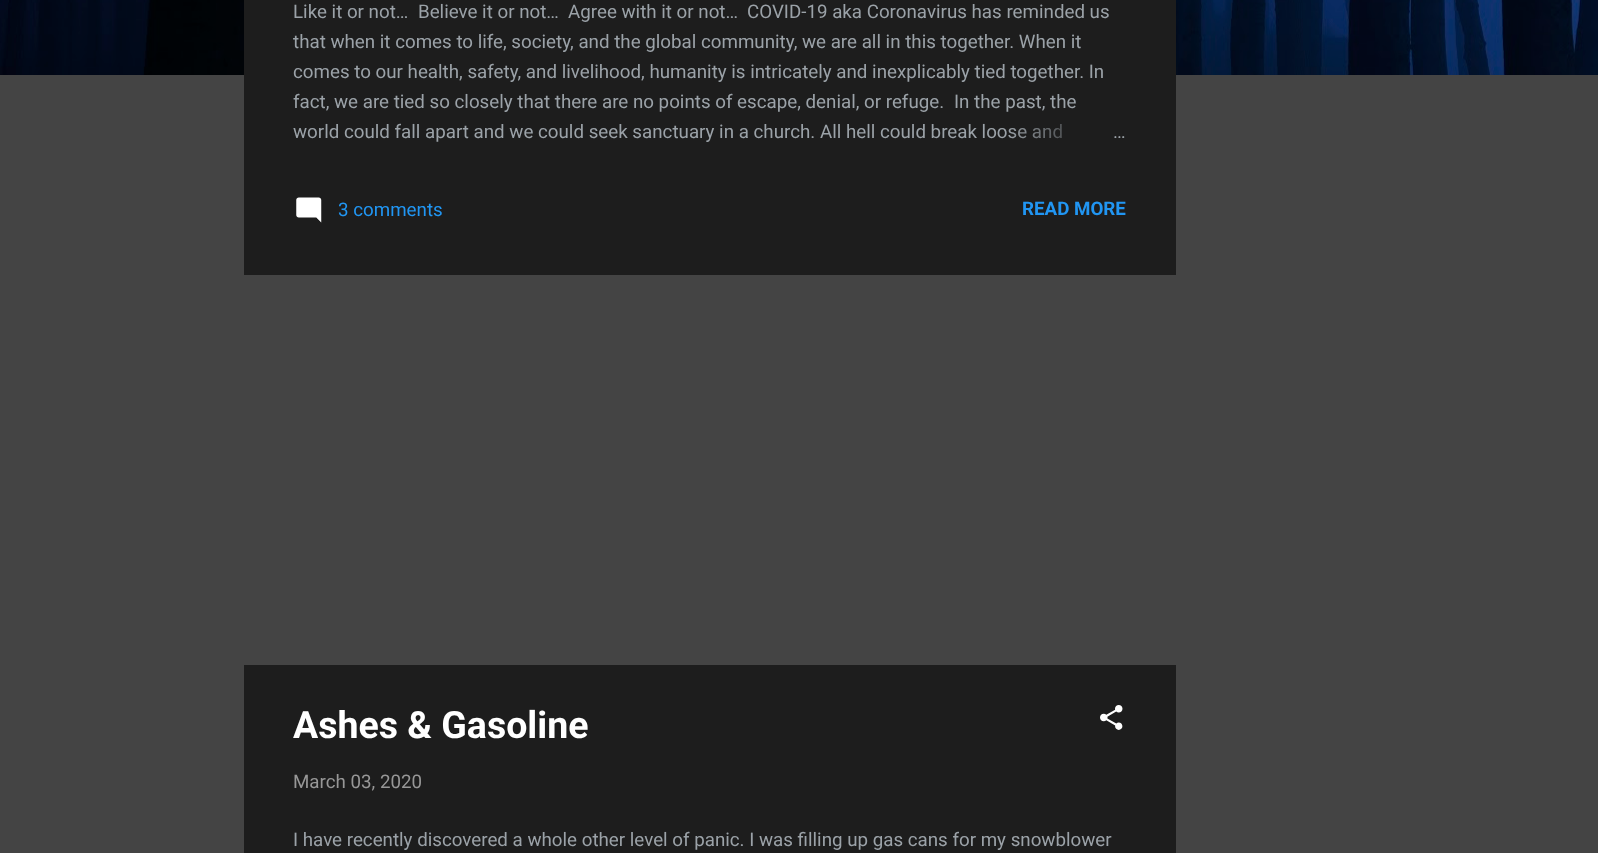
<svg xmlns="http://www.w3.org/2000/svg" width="1598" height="853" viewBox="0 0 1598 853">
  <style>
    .t1 { font: 18.75px Roboto; fill: #9ba2a8; }
    .t2 { font: 18.75px Roboto; fill: #2196f3; }
    .t3 { font: bold 18.75px Roboto; fill: #2196f3; }
    .t4 { font: bold 37.5px Roboto; fill: #fff; }
    .t5 { font: 18.75px Roboto; fill: #979797; }
  </style>
  <defs>
    <linearGradient id="g1" gradientUnits="userSpaceOnUse" x1="1126" y1="133" x2="1006" y2="133"><stop offset="0" stop-color="#1d1d1d"/><stop offset="0.2" stop-color="#1d1d1d"/><stop offset="1" stop-color="#1d1d1d" stop-opacity="0"/></linearGradient>
  </defs>
  <rect width="100%" height="100%" fill="#444"/>
  <image x="0" y="0" width="1598" height="75" href="images/1.png"/>
  <rect x="244" y="0" width="932" height="275" fill="#1d1d1d"/>
  <text x="293" y="18" class="t1">Like it or not…</text>
  <text x="418" y="18" class="t1">Believe it or not…</text>
  <text x="568" y="18" class="t1">Agree with it or not…</text>
  <text x="747" y="18" class="t1">COVID-19 aka Coronavirus has reminded us</text>
  <text x="293" y="48" class="t1">that when it comes to life, society, and the global community, we are all in this together. When it</text>
  <text x="293" y="78" class="t1">comes to our health, safety, and livelihood, humanity is intricately and inexplicably tied together. In</text>
  <text x="293" y="108" class="t1">fact, we are tied so closely that there are no points of escape, denial, or refuge.</text>
  <text x="954" y="108" class="t1">In the past, the</text>
  <text x="293" y="138" class="t1">world could fall apart and we could seek sanctuary in a church. All hell could break loose and</text>
  <rect x="1009" y="123" width="53" height="16" fill="url(#g1)"/>
  <text x="1113" y="138" class="t1">…</text>
  <image x="296" y="197" width="26" height="26" href="images/2.png"/>
  <text x="338" y="216" class="t2">3 comments</text>
  <text x="1022" y="215" class="t3">READ MORE</text>
  <rect x="244" y="665" width="932" height="188" fill="#1d1d1d"/>
  <text x="293" y="738" class="t4">Ashes &amp; Gasoline</text>
  <image x="1100" y="705" width="23" height="25" href="images/3.png"/>
  <text x="293" y="788" class="t5">March 03, 2020</text>
  <text x="293" y="846" class="t1">I have recently discovered a whole other level of panic. I was filling up gas cans for my snowblower</text>
</svg>
